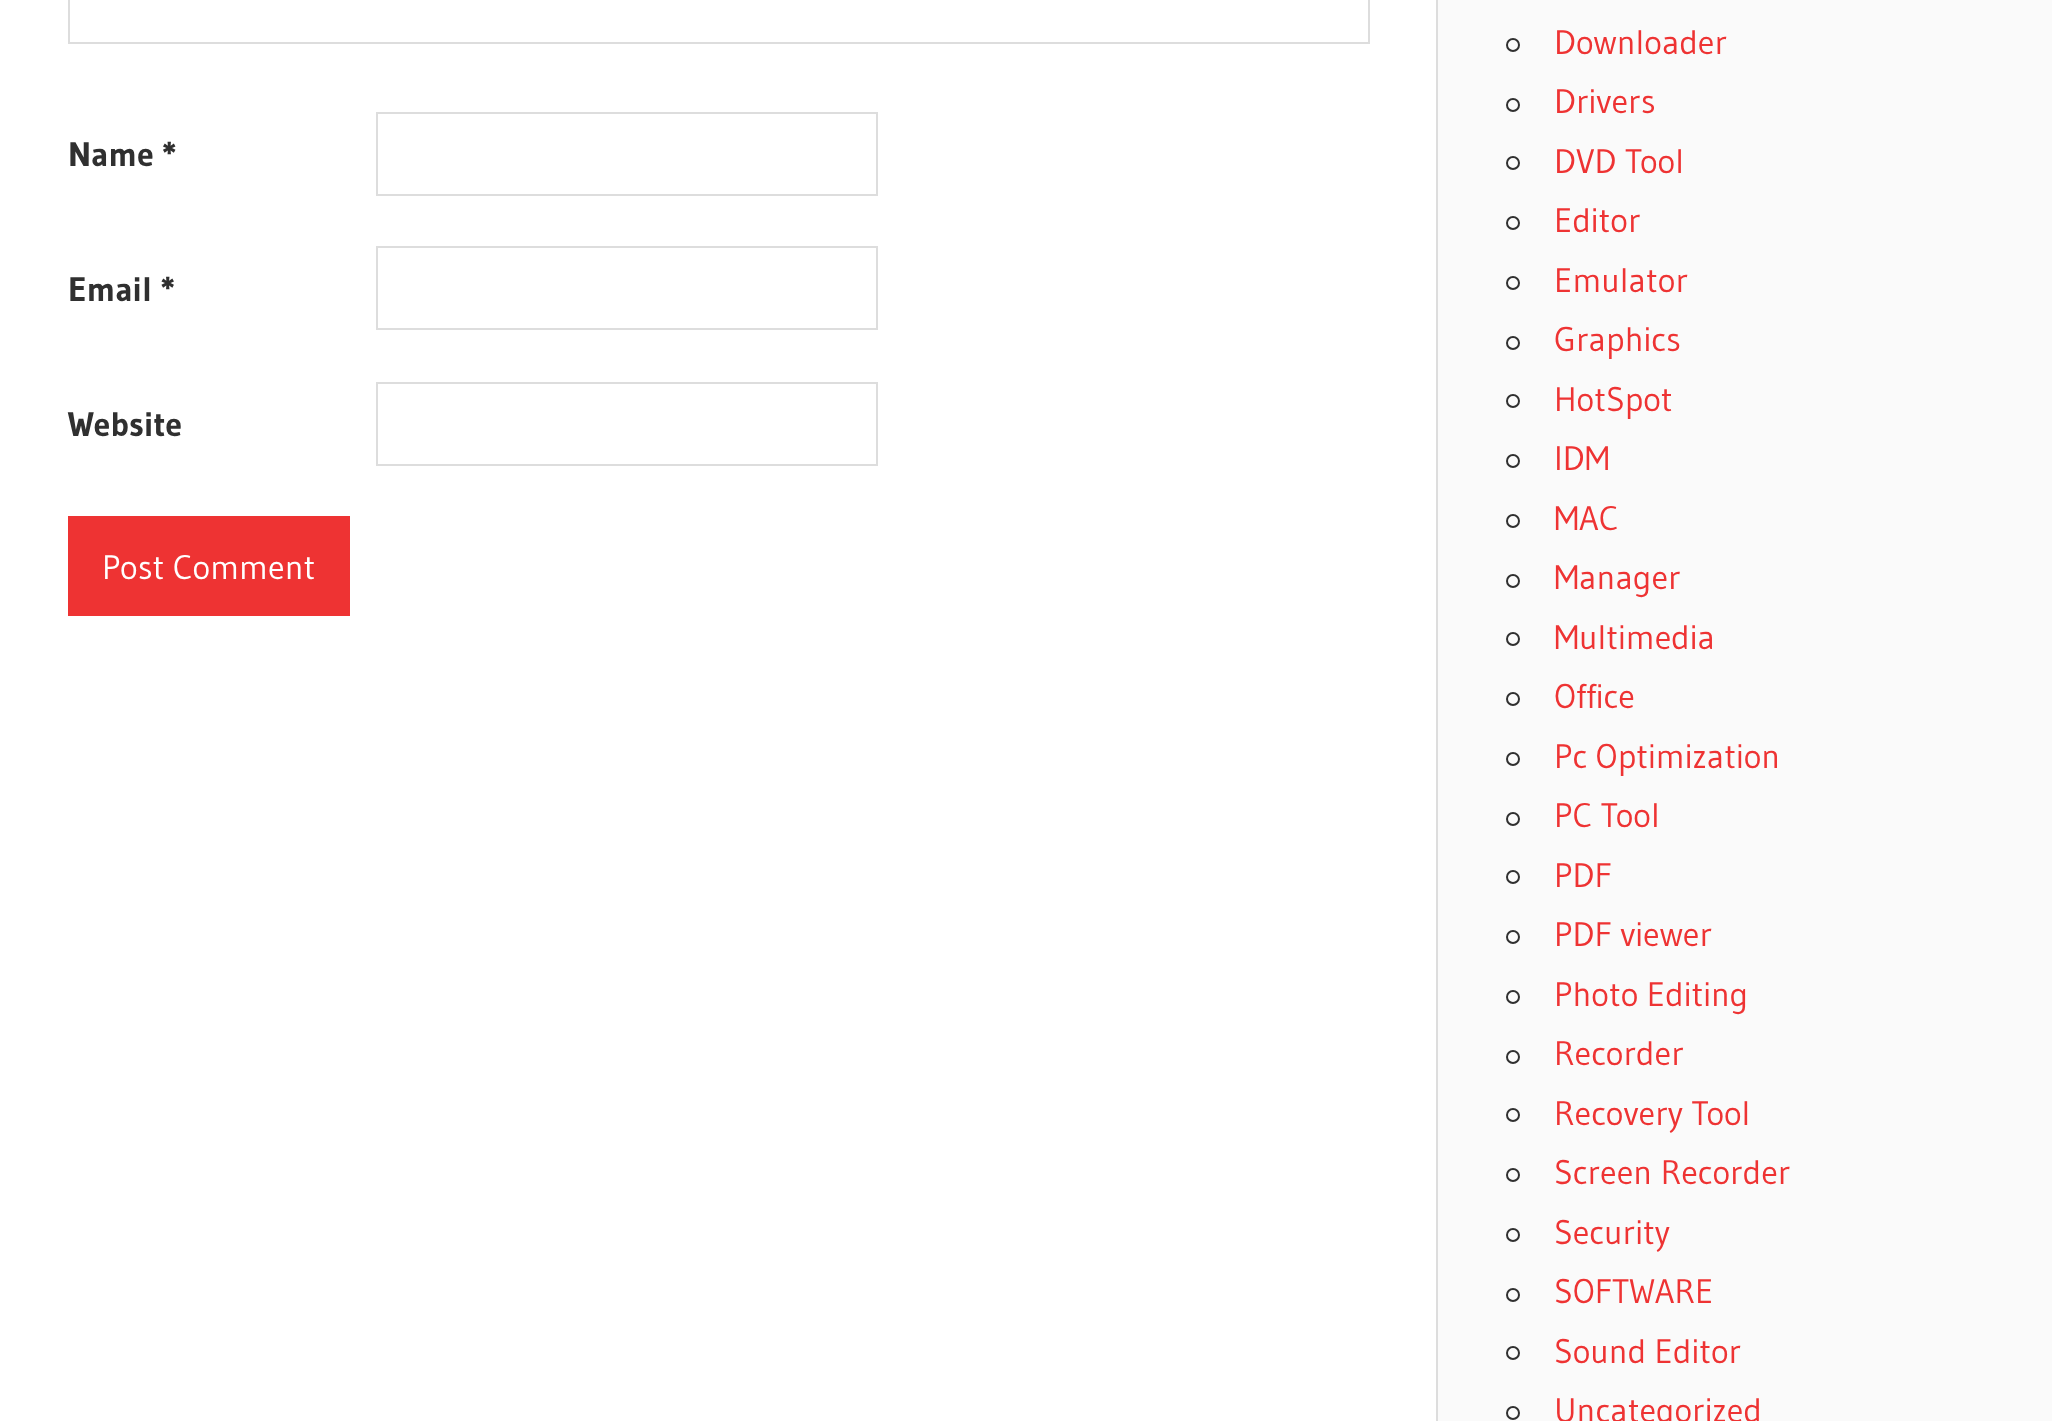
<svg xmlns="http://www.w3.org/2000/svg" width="2054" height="1421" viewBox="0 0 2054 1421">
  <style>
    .t1 { font: bold 34px Gudea; fill: #303030; }
    .t2 { font: 34px Gudea; fill: #fff; }
    .t3 { font: 34px Gudea; fill: #e33; }
  </style>
  <rect width="100%" height="100%" fill="#fff"/>
  <rect x="69" y="-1" width="1300" height="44" fill="none" stroke="#ddd" stroke-width="2"/>
  <text x="68" y="166" class="t1">Name *</text>
  <rect x="377" y="113" width="500" height="82" fill="none" stroke="#ddd" stroke-width="2"/>
  <text x="68" y="301" class="t1">Email *</text>
  <rect x="377" y="247" width="500" height="82" fill="none" stroke="#ddd" stroke-width="2"/>
  <text x="68" y="436" class="t1">Website</text>
  <rect x="377" y="383" width="500" height="82" fill="none" stroke="#ddd" stroke-width="2"/>
  <rect x="68" y="516" width="282" height="100" fill="#e33"/>
  <text x="102" y="579" class="t2">Post Comment</text>
  <rect x="1438" y="0" width="614" height="1421" fill="#fafafa"/>
  <rect x="1436" y="0" width="2" height="1421" fill="#ddd"/>
  <circle cx="1513" cy="45" r="6" fill="none" stroke="#303030" stroke-width="2"/>
  <text x="1554" y="54" class="t3">Downloader</text>
  <circle cx="1513" cy="105" r="6" fill="none" stroke="#303030" stroke-width="2"/>
  <text x="1554" y="113" class="t3">Drivers</text>
  <circle cx="1513" cy="163" r="6" fill="none" stroke="#303030" stroke-width="2"/>
  <text x="1554" y="173" class="t3">DVD Tool</text>
  <circle cx="1513" cy="223" r="6" fill="none" stroke="#303030" stroke-width="2"/>
  <text x="1554" y="232" class="t3">Editor</text>
  <circle cx="1513" cy="283" r="6" fill="none" stroke="#303030" stroke-width="2"/>
  <text x="1554" y="292" class="t3">Emulator</text>
  <circle cx="1513" cy="343" r="6" fill="none" stroke="#303030" stroke-width="2"/>
  <text x="1554" y="351" class="t3">Graphics</text>
  <circle cx="1513" cy="401" r="6" fill="none" stroke="#303030" stroke-width="2"/>
  <text x="1554" y="411" class="t3">HotSpot</text>
  <circle cx="1513" cy="461" r="6" fill="none" stroke="#303030" stroke-width="2"/>
  <text x="1554" y="470" class="t3">IDM</text>
  <circle cx="1513" cy="521" r="6" fill="none" stroke="#303030" stroke-width="2"/>
  <text x="1554" y="530" class="t3">MAC</text>
  <circle cx="1513" cy="581" r="6" fill="none" stroke="#303030" stroke-width="2"/>
  <text x="1554" y="589" class="t3">Manager</text>
  <circle cx="1513" cy="639" r="6" fill="none" stroke="#303030" stroke-width="2"/>
  <text x="1554" y="649" class="t3">Multimedia</text>
  <circle cx="1513" cy="699" r="6" fill="none" stroke="#303030" stroke-width="2"/>
  <text x="1554" y="708" class="t3">Office</text>
  <circle cx="1513" cy="759" r="6" fill="none" stroke="#303030" stroke-width="2"/>
  <text x="1554" y="768" class="t3">Pc Optimization</text>
  <circle cx="1513" cy="819" r="6" fill="none" stroke="#303030" stroke-width="2"/>
  <text x="1554" y="827" class="t3">PC Tool</text>
  <circle cx="1513" cy="877" r="6" fill="none" stroke="#303030" stroke-width="2"/>
  <text x="1554" y="887" class="t3">PDF</text>
  <circle cx="1513" cy="937" r="6" fill="none" stroke="#303030" stroke-width="2"/>
  <text x="1554" y="946" class="t3">PDF viewer</text>
  <circle cx="1513" cy="997" r="6" fill="none" stroke="#303030" stroke-width="2"/>
  <text x="1554" y="1006" class="t3">Photo Editing</text>
  <circle cx="1513" cy="1057" r="6" fill="none" stroke="#303030" stroke-width="2"/>
  <text x="1554" y="1065" class="t3">Recorder</text>
  <circle cx="1513" cy="1115" r="6" fill="none" stroke="#303030" stroke-width="2"/>
  <text x="1554" y="1125" class="t3">Recovery Tool</text>
  <circle cx="1513" cy="1175" r="6" fill="none" stroke="#303030" stroke-width="2"/>
  <text x="1554" y="1184" class="t3">Screen Recorder</text>
  <circle cx="1513" cy="1235" r="6" fill="none" stroke="#303030" stroke-width="2"/>
  <text x="1554" y="1244" class="t3">Security</text>
  <circle cx="1513" cy="1295" r="6" fill="none" stroke="#303030" stroke-width="2"/>
  <text x="1554" y="1303" class="t3">SOFTWARE</text>
  <circle cx="1513" cy="1353" r="6" fill="none" stroke="#303030" stroke-width="2"/>
  <text x="1554" y="1363" class="t3">Sound Editor</text>
  <circle cx="1513" cy="1413" r="6" fill="none" stroke="#303030" stroke-width="2"/>
  <text x="1554" y="1422" class="t3">Uncategorized</text>
</svg>
